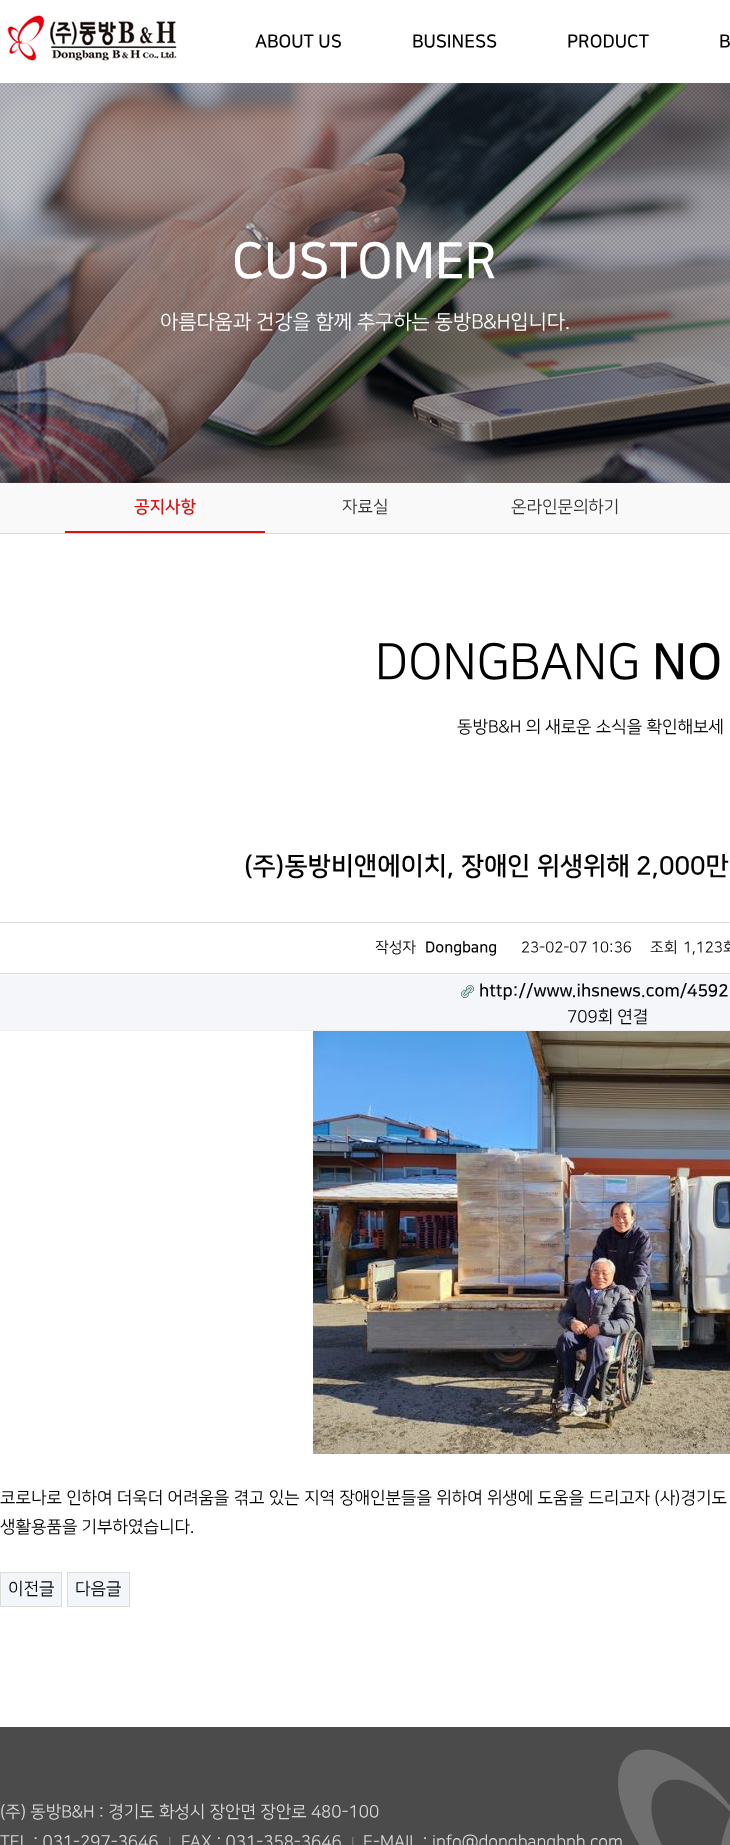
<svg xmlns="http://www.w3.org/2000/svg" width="730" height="1845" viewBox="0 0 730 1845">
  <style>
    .t1 { font: bold 18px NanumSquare; fill: #000; }
    .t2 { font: bold 50px NanumSquare; fill: #fff; }
    .t3 { font: 20px NanumSquare; fill: #fff; }
    .t4 { font: bold 17px NanumSquare; fill: #dc1111; }
    .t5 { font: 17px NanumSquare; fill: #333; }
    .t6 { font: 50px NanumSquare; fill: #000; }
    .t7 { font: bold 50px NanumSquare; fill: #000; }
    .t8 { font: 17px NanumSquare; fill: #000; }
    .t9 { font: bold 25.5px NanumSquare; fill: #000; }
    .t10 { font: 15px NanumSquare; fill: #000; }
    .t11 { font: bold 15px NanumSquare; fill: #000; }
    .t12 { font: bold 17px NanumSquare; fill: #000; }
    .t13 { font: 17px NanumSquare; fill: #d9d9d9; }
    .t14 { font: 13px NanumSquare; fill: #999; }
  </style>
  <rect width="100%" height="100%" fill="#fff"/>
  <image x="6" y="15" width="171" height="46" href="images/1.png"/>
  <text x="255" y="47" class="t1">ABOUT US</text>
  <text x="412" y="47" class="t1">BUSINESS</text>
  <text x="567" y="47" class="t1">PRODUCT</text>
  <text x="719" y="47" class="t1">B</text>
  <image x="0" y="83" width="730" height="400" href="images/2.png"/>
  <text x="232" y="277" class="t2">CUSTOMER</text>
  <text x="160" y="328" class="t3">아름다움과 건강을 함께 추구하는 동방B&amp;H입니다.</text>
  <rect x="0" y="483" width="730" height="50" fill="#f9f9f9"/>
  <rect x="0" y="533" width="730" height="1" fill="#d9d9d9"/>
  <rect x="65" y="531" width="200" height="2" fill="#dc1111"/>
  <text x="134" y="512" class="t4">공지사항</text>
  <text x="342" y="512" class="t5">자료실</text>
  <text x="511" y="512" class="t5">온라인문의하기</text>
  <text x="375" y="678" class="t6">DONGBANG</text>
  <text x="652" y="678" class="t7">NO</text>
  <text x="457" y="732" class="t8">동방B&amp;H 의 새로운 소식을 확인해보세</text>
  <text x="244" y="874" class="t9">(주)동방비앤에이치, 장애인 위생위해 2,000만</text>
  <rect x="0" y="922" width="730" height="1" fill="#ddd"/>
  <rect x="0" y="973" width="730" height="1" fill="#ddd"/>
  <text x="375" y="952" class="t10">작성자</text>
  <text x="425" y="952" class="t11">Dongbang</text>
  <text x="521" y="952" class="t10">23-02-07 10:36</text>
  <text x="650" y="952" class="t10">조회</text>
  <text x="683" y="952" class="t10">1,123회</text>
  <rect x="0" y="974" width="730" height="56" fill="#f5f6fa"/>
  <rect x="0" y="1030" width="730" height="1" fill="#eee"/>
  <image x="461" y="985" width="13" height="13" href="images/3.png"/>
  <text x="479" y="996" class="t12">http://www.ihsnews.com/4592</text>
  <text x="567" y="1022" class="t8">709회 연결</text>
  <image x="313" y="1031" width="417" height="423" href="images/4.png"/>
  <text x="0" y="1503" class="t8">코로나로 인하여 더욱더 어려움을 겪고 있는 지역 장애인분들을 위하여 위생에 도움을 드리고자 (사)경기도</text>
  <text x="0" y="1532" class="t8">생활용품을 기부하였습니다.</text>
  <rect x="0.5" y="1572.5" width="61" height="34" fill="#f2f5f9" stroke="#d9ded9"/>
  <text x="8" y="1594" class="t8">이전글</text>
  <rect x="67.5" y="1572.5" width="62" height="34" fill="#f2f5f9" stroke="#d9ded9"/>
  <text x="75" y="1594" class="t8">다음글</text>
  <image x="0" y="1727" width="730" height="118" href="images/5.png"/>
  <text x="0" y="1817" class="t13">(주) 동방B&amp;H : 경기도 화성시 장안면 장안로 480-100</text>
  <text x="0" y="1847" class="t13">TEL : 031-297-3646</text>
  <text x="168" y="1847" class="t14">|</text>
  <text x="181" y="1847" class="t13">FAX : 031-358-3646</text>
  <text x="351" y="1847" class="t14">|</text>
  <text x="363" y="1847" class="t13">E-MAIL : info@dongbangbnh.com</text>
</svg>
